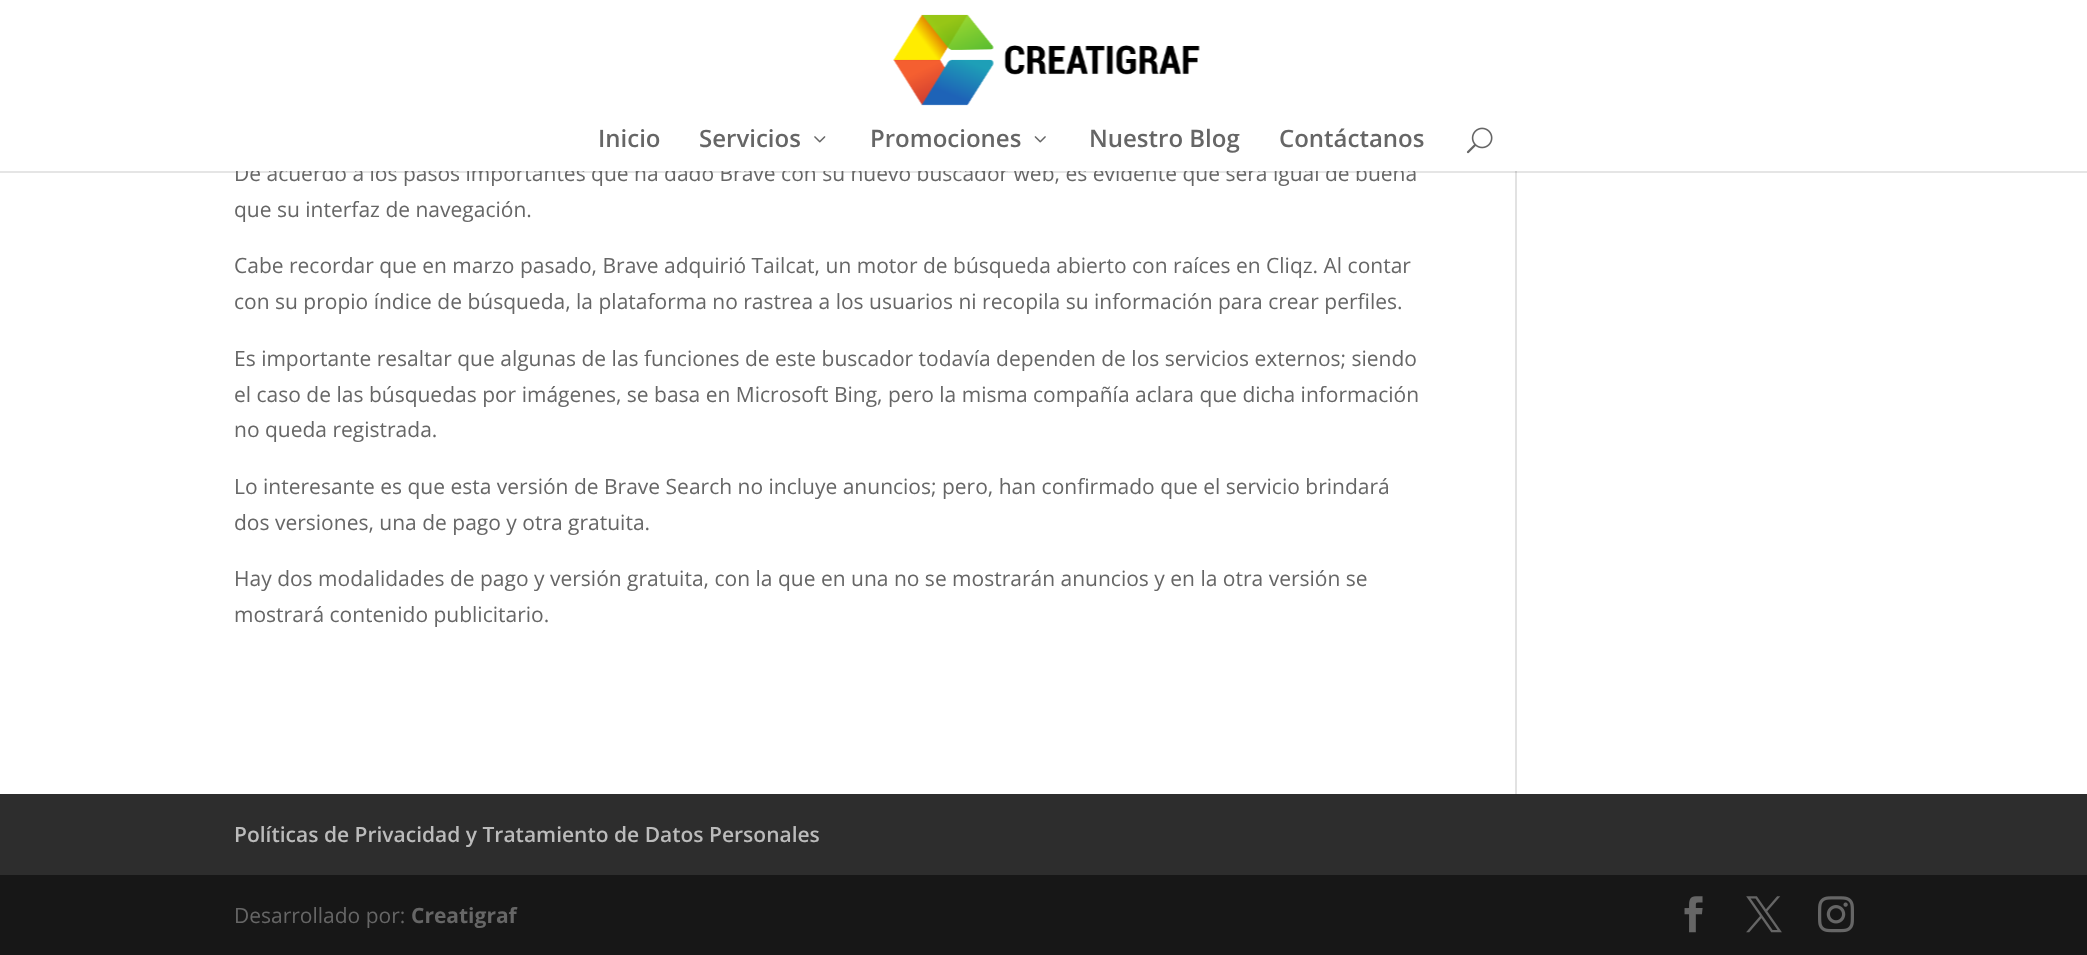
<svg xmlns="http://www.w3.org/2000/svg" width="2087" height="955" viewBox="0 0 2087 955">
  <style>
    .t1 { font: 21px Open Sans; fill: #666; }
    .t2 { font: 600 24px Open Sans; fill: #666; }
    .t3 { font: 600 21px Open Sans; fill: #bbb; }
    .t4 { font: bold 21px Open Sans; fill: #666; }
  </style>
  <rect width="100%" height="100%" fill="#fff"/>
  <rect x="1515" y="171" width="2" height="623" fill="#e2e2e2"/>
  <rect x="0" y="171" width="2087" height="2" fill="#0000001a"/>
  <text x="234" y="181" class="t1">De acuerdo a los pasos importantes que ha dado Brave con su nuevo buscador web, es evidente que será igual de buena</text>
  <rect x="236" y="164" width="1179" height="7" fill="#fff"/>
  <image x="893" y="14" width="307" height="92" href="images/1.png"/>
  <text x="598" y="147" class="t2">Inicio</text>
  <text x="699" y="147" class="t2">Servicios</text>
  <image x="814" y="136" width="12" height="7" href="images/2.png"/>
  <text x="870" y="147" class="t2">Promociones</text>
  <image x="1034" y="136" width="12" height="7" href="images/3.png"/>
  <text x="1089" y="147" class="t2">Nuestro Blog</text>
  <text x="1279" y="147" class="t2">Contáctanos</text>
  <image x="1466" y="127" width="27" height="27" href="images/4.png"/>
  <text x="234" y="217" class="t1">que su interfaz de navegación.</text>
  <text x="234" y="273" class="t1">Cabe recordar que en marzo pasado, Brave adquirió Tailcat, un motor de búsqueda abierto con raíces en Cliqz. Al contar</text>
  <text x="234" y="309" class="t1">con su propio índice de búsqueda, la plataforma no rastrea a los usuarios ni recopila su información para crear perfiles.</text>
  <text x="234" y="366" class="t1">Es importante resaltar que algunas de las funciones de este buscador todavía dependen de los servicios externos; siendo</text>
  <text x="234" y="402" class="t1">el caso de las búsquedas por imágenes, se basa en Microsoft Bing, pero la misma compañía aclara que dicha información</text>
  <text x="234" y="437" class="t1">no queda registrada.</text>
  <text x="234" y="494" class="t1">Lo interesante es que esta versión de Brave Search no incluye anuncios; pero, han confirmado que el servicio brindará</text>
  <text x="234" y="530" class="t1">dos versiones, una de pago y otra gratuita.</text>
  <text x="234" y="586" class="t1">Hay dos modalidades de pago y versión gratuita, con la que en una no se mostrarán anuncios y en la otra versión se</text>
  <text x="234" y="622" class="t1">mostrará contenido publicitario.</text>
  <rect x="0" y="794" width="2087" height="81" fill="#2d2d2d"/>
  <text x="234" y="842" class="t3">Políticas de Privacidad y Tratamiento de Datos Personales</text>
  <rect x="0" y="875" width="2087" height="80" fill="#171717"/>
  <text x="234" y="923" class="t1">Desarrollado por:</text>
  <text x="411" y="923" class="t4">Creatigraf</text>
  <image x="1684" y="896" width="19" height="37" href="images/5.png"/>
  <image x="1746" y="896" width="36" height="37" href="images/6.png"/>
  <image x="1818" y="896" width="36" height="37" href="images/7.png"/>
</svg>
